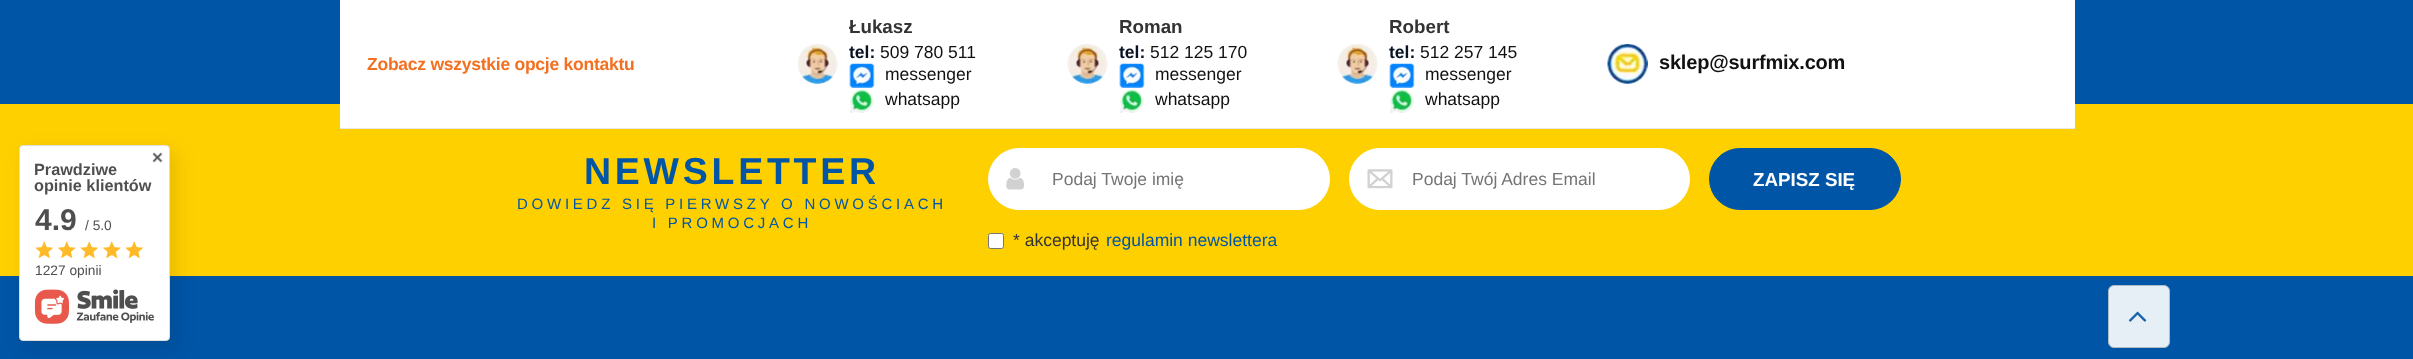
<svg xmlns="http://www.w3.org/2000/svg" width="2413" height="359" viewBox="0 0 2413 359">
  <style>
    .t1 { font: bold 17.5px Liberation Sans; letter-spacing: -0.25px; fill: #f37021; }
    .t2 { font: bold 18.75px Liberation Sans; fill: #333; }
    .t3 { font: bold 17.5px Liberation Sans; fill: #071222; }
    .t4 { font: 17.5px Liberation Sans; fill: #111; }
    .t5 { font: bold 20px Liberation Sans; letter-spacing: -0.2px; fill: #111; }
    .t6 { font: bold 16.25px Liberation Sans; fill: #4f4f4f; }
    .t7 { font: bold 30px Liberation Sans; fill: #4f4f4f; }
    .t8 { font: 13.75px Liberation Sans; fill: #4f4f4f; }
    .t9 { font: bold 37.5px Liberation Sans; letter-spacing: 3.75px; fill: #0055a6; }
    .t10 { font: 15px Liberation Sans; letter-spacing: 3.75px; fill: #0055a6; }
    .t11 { font: 17.5px Liberation Sans; fill: #757575; }
    .t12 { font: bold 18.75px Liberation Sans; fill: #fff; }
    .t13 { font: 17.5px Liberation Sans; fill: #333; }
    .t14 { font: 17.5px Liberation Sans; fill: #0055a6; }
  </style>
  <rect width="100%" height="100%" fill="#0055a6"/>
  <rect x="0" y="104" width="2413" height="172" fill="#ffd000"/>
  <rect x="340" y="0" width="1735" height="128" fill="#fff"/>
  <rect x="340" y="128" width="1735" height="1" fill="#e5e7eb"/>
  <text x="367" y="70" class="t1">Zobacz wszystkie opcje kontaktu</text>
  <image x="798" y="44" width="40" height="40" href="images/1.png"/>
  <text x="849" y="33" class="t2">Łukasz</text>
  <text x="849" y="58" class="t3">tel:</text>
  <text x="880" y="58" class="t4">509 780 511</text>
  <image x="849" y="63" width="26" height="25" href="images/2.png"/>
  <text x="885" y="80" class="t4">messenger</text>
  <image x="850" y="89" width="24" height="24" href="images/3.png"/>
  <text x="885" y="105" class="t4">whatsapp</text>
  <image x="1067" y="44" width="41" height="40" href="images/4.png"/>
  <text x="1119" y="33" class="t2">Roman</text>
  <text x="1119" y="58" class="t3">tel:</text>
  <text x="1150" y="58" class="t4">512 125 170</text>
  <image x="1119" y="63" width="26" height="25" href="images/5.png"/>
  <text x="1155" y="80" class="t4">messenger</text>
  <image x="1120" y="89" width="24" height="24" href="images/3.png"/>
  <text x="1155" y="105" class="t4">whatsapp</text>
  <image x="1337" y="44" width="41" height="40" href="images/6.png"/>
  <text x="1389" y="33" class="t2">Robert</text>
  <text x="1389" y="58" class="t3">tel:</text>
  <text x="1420" y="58" class="t4">512 257 145</text>
  <image x="1389" y="63" width="26" height="25" href="images/5.png"/>
  <text x="1425" y="80" class="t4">messenger</text>
  <image x="1390" y="89" width="24" height="24" href="images/7.png"/>
  <text x="1425" y="105" class="t4">whatsapp</text>
  <image x="1607" y="44" width="41" height="40" href="images/8.png"/>
  <text x="1659" y="69" class="t5">sklep@surfmix.com</text>
  <rect x="25" y="151" width="151" height="197" rx="4" fill="#0000001a" filter="blur(9.5px)"/>
  <rect x="19.5" y="145.5" width="150" height="195" rx="3.5" fill="#fff" stroke="#dedede"/>
  <image x="152" y="152" width="11" height="11" href="images/9.png"/>
  <text x="34" y="175" class="t6">Prawdziwe</text>
  <text x="34" y="191" class="t6">opinie klientów</text>
  <text x="35" y="230" class="t7">4.9</text>
  <text x="85" y="230" class="t8">/ 5.0</text>
  <image x="35" y="241" width="19" height="18" href="images/10.png"/>
  <image x="58" y="241" width="18" height="18" href="images/11.png"/>
  <image x="80" y="241" width="19" height="18" href="images/10.png"/>
  <image x="103" y="241" width="18" height="18" href="images/11.png"/>
  <image x="125" y="241" width="19" height="18" href="images/10.png"/>
  <text x="35" y="275" class="t8">1227 opinii</text>
  <image x="34" y="289" width="120" height="35" href="images/12.png"/>
  <text x="584" y="184" class="t9">NEWSLETTER</text>
  <text x="517" y="209" class="t10">DOWIEDZ SIĘ PIERWSZY O NOWOŚCIACH</text>
  <text x="652" y="228" class="t10">I PROMOCJACH</text>
  <rect x="988.5" y="148.5" width="341" height="61" rx="30.5" fill="#fff" stroke="#fff"/>
  <image x="1006" y="168" width="18" height="22" href="images/13.png"/>
  <text x="1052" y="185" class="t11">Podaj Twoje imię</text>
  <rect x="1349.5" y="148.5" width="340" height="61" rx="30.5" fill="#fff" stroke="#fff"/>
  <image x="1367" y="169" width="26" height="20" href="images/14.png"/>
  <text x="1412" y="185" class="t11">Podaj Twój Adres Email</text>
  <rect x="1709.5" y="148.5" width="191" height="61" rx="30.5" fill="#0055a6" stroke="#0055a6"/>
  <text x="1753" y="186" class="t12">ZAPISZ SIĘ</text>
  <rect x="988.5" y="233.5" width="15" height="15" rx="2" fill="#fff" stroke="#767676"/>
  <text x="1013" y="246" class="t13">* akceptuję</text>
  <text x="1106" y="246" class="t14">regulamin newslettera</text>
  <rect x="2108.5" y="285.5" width="61" height="62" rx="5.5" fill="#e6eef6" stroke="#b0bcc5"/>
  <image x="2128" y="311" width="19" height="11" href="images/15.png"/>
</svg>
